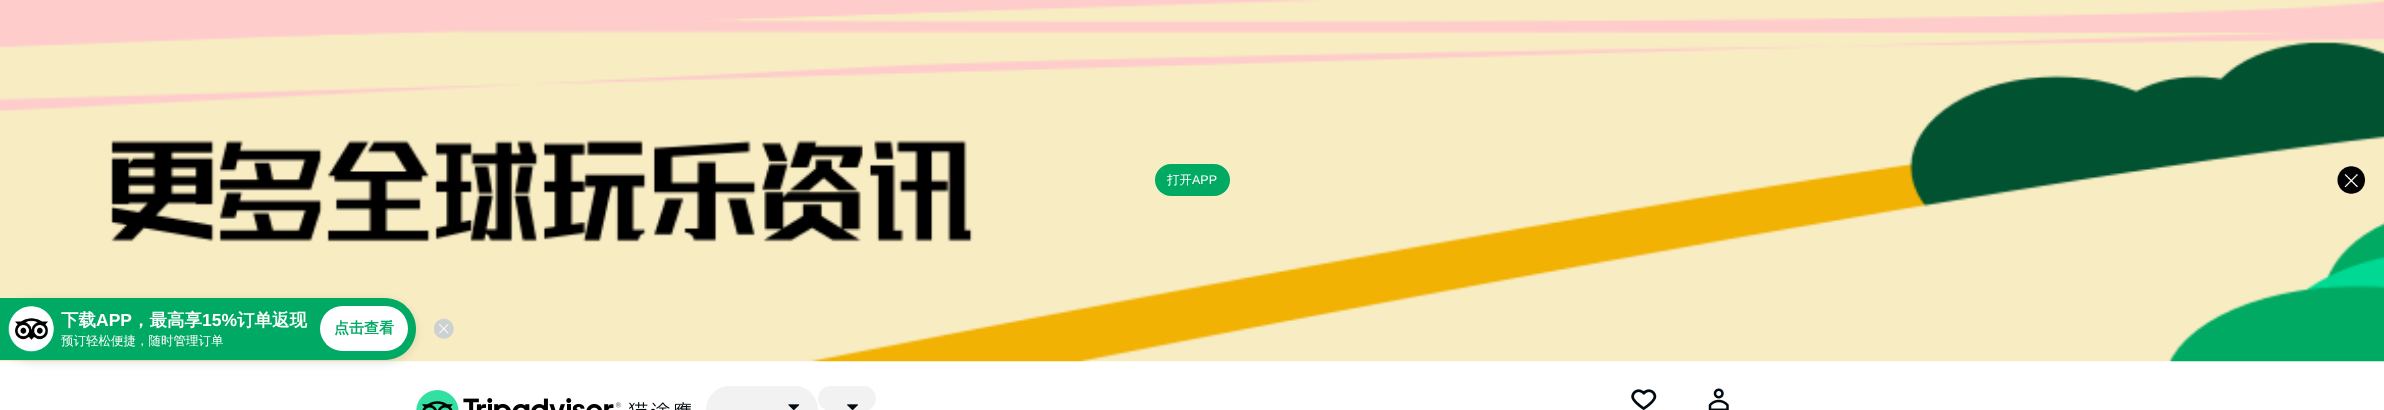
<svg xmlns="http://www.w3.org/2000/svg" width="2384" height="410" viewBox="0 0 2384 410">
  <style>
    .t1 { font: 500 12.5px WenQuanYi Zen Hei; fill: #fff; }
    .t2 { font: 12.5px Liberation Sans; fill: #fff; }
    .t3 { font: bold 17.5px WenQuanYi Zen Hei; fill: #fff; }
    .t4 { font: bold 17.5px Liberation Sans; fill: #fff; }
    .t5 { font: bold 15px WenQuanYi Zen Hei; fill: #00a964; }
  </style>
  <rect width="100%" height="100%" fill="#fff"/>
  <image x="0" y="0" width="2384" height="362" href="images/1.png"/>
  <rect x="1155" y="164" width="75" height="32" rx="16" fill="#00aa63"/>
  <text x="1167" y="184" class="t1">打开</text>
  <text x="1192" y="184" class="t2">APP</text>
  <image x="2337" y="166" width="28" height="28" href="images/2.png"/>
  <image x="416" y="390" width="275" height="20" href="images/3.png"/>
  <path d="M730 386H794C807.5 386 818 396.5 818 410H706C706 396.5 716.5 386 730 386Z" fill="#f2f2f2"/>
  <image x="788" y="404" width="12" height="6" href="images/4.png"/>
  <rect x="818" y="386" width="58" height="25" rx="12.5" fill="#f2f2f2"/>
  <image x="847" y="404" width="11" height="6" href="images/5.png"/>
  <image x="1631" y="389" width="26" height="21" href="images/6.png"/>
  <image x="1708" y="388" width="21" height="22" href="images/7.png"/>
  <rect x="0" y="300" width="416" height="63" rx="31.5" fill="#0000001a" filter="blur(4px)"/>
  <path d="M0 298H385C402 298 416 312 416 329C416 346 402 360 385 360H0Z" fill="#00a964"/>
  <image x="8" y="306" width="46" height="46" href="images/8.png"/>
  <text x="61" y="326" class="t3">下载</text>
  <text x="96" y="326" class="t4">APP</text>
  <text x="132" y="326" class="t3">，最高享</text>
  <text x="202" y="326" class="t4">15%</text>
  <text x="237" y="326" class="t3">订单返现</text>
  <text x="61" y="345" class="t1">预订轻松便捷，随时管理订单</text>
  <rect x="320" y="306" width="88" height="45" rx="22.5" fill="#fff"/>
  <text x="334" y="333" class="t5">点击查看</text>
  <image x="434" y="318" width="20" height="21" href="images/9.png"/>
</svg>
